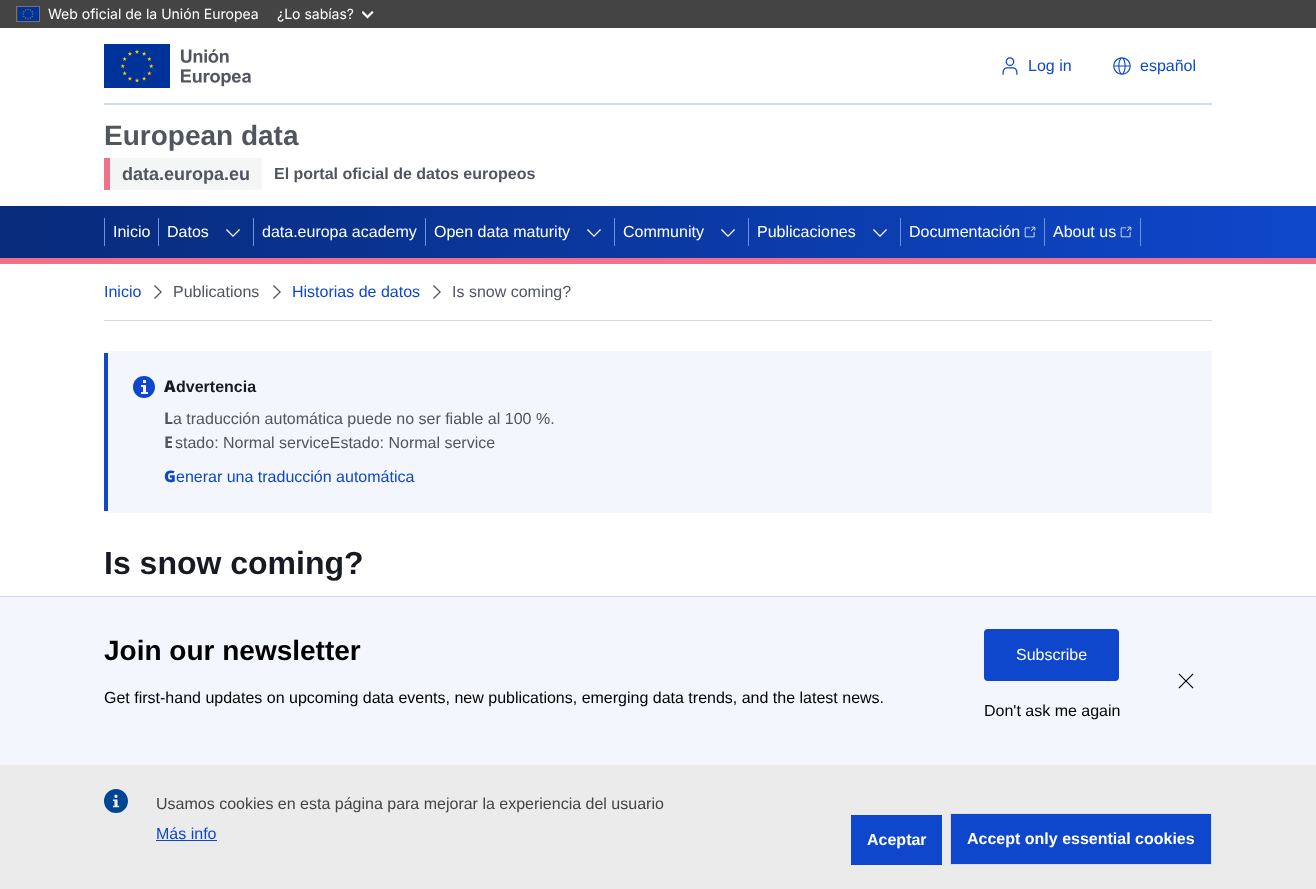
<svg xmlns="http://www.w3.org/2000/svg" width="1316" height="889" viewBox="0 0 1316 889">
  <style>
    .t1 { font: 14px Inter; fill: #fff; }
    .t2 { font: 16px Liberation Sans; fill: #0e47cb; }
    .t3 { font: bold 28px Liberation Sans; fill: #515560; }
    .t4 { font: bold 18px Liberation Sans; fill: #515560; }
    .t5 { font: bold 16px Liberation Sans; fill: #515560; }
    .t6 { font: 16px Liberation Sans; fill: #fff; }
    .t7 { font: 16px Liberation Sans; fill: #515560; }
    .t8 { font: 900 16px Noto Sans; fill: #171a22; }
    .t9 { font: bold 16px Liberation Sans; fill: #171a22; }
    .t10 { font: bold 16px Noto Sans; fill: #515560; }
    .t11 { font: 900 16px Noto Sans; fill: #0e47cb; }
    .t12 { font: bold 32px Liberation Sans; fill: #171a22; }
    .t13 { font: bold 28px Liberation Sans; fill: #000; }
    .t14 { font: 16px Liberation Sans; fill: #000; }
    .t15 { font: 16px Liberation Sans; fill: #444; }
    .t16 { font: bold 16px Liberation Sans; fill: #fff; }
  </style>
  <defs>
    <linearGradient id="g1" gradientUnits="userSpaceOnUse" x1="0" y1="232" x2="1316" y2="232"><stop offset="0" stop-color="#082b7a"/><stop offset="1" stop-color="#0e47cb"/></linearGradient>
  </defs>
  <rect width="100%" height="100%" fill="#fff"/>
  <rect x="0" y="0" width="1316" height="28" fill="#444"/>
  <rect x="16.5" y="6.5" width="23" height="15" fill="none" stroke="#737373"/>
  <image x="18" y="7" width="21" height="14" href="images/1.png"/>
  <text x="48" y="19" class="t1">Web oficial de la Unión Europea</text>
  <text x="277" y="19" class="t1">¿Lo sabías?</text>
  <image x="362" y="11" width="12" height="8" href="images/2.png"/>
  <image x="104" y="44" width="147" height="44" href="images/3.png"/>
  <image x="1002" y="57" width="16" height="18" href="images/4.png"/>
  <text x="1028" y="71" class="t2">Log in</text>
  <image x="1113" y="57" width="18" height="18" href="images/5.png"/>
  <text x="1140" y="71" class="t2">español</text>
  <rect x="104" y="103" width="1108" height="2" fill="#cfdaf5"/>
  <text x="104" y="145" class="t3">European data</text>
  <rect x="110" y="158" width="152" height="32" fill="#f4f5f5"/>
  <rect x="104" y="158" width="6" height="32" fill="#f2718a"/>
  <text x="122" y="180" class="t4">data.europa.eu</text>
  <text x="274" y="179" class="t5">El portal oficial de datos europeos</text>
  <rect x="0" y="206" width="1316" height="52" fill="url(#g1)"/>
  <rect x="0" y="258" width="1316" height="6" fill="#f2718a"/>
  <rect x="104" y="218" width="1" height="28" fill="#6e91e0"/>
  <text x="113" y="237" class="t6">Inicio</text>
  <rect x="158" y="218" width="1" height="28" fill="#6e91e0"/>
  <text x="167" y="237" class="t6">Datos</text>
  <image x="226" y="229" width="14" height="8" href="images/6.png"/>
  <rect x="253" y="218" width="1" height="28" fill="#6e91e0"/>
  <text x="262" y="237" class="t6">data.europa academy</text>
  <rect x="425" y="218" width="1" height="28" fill="#6e91e0"/>
  <text x="434" y="237" class="t6">Open data maturity</text>
  <image x="587" y="229" width="14" height="8" href="images/7.png"/>
  <rect x="614" y="218" width="1" height="28" fill="#6e91e0"/>
  <text x="623" y="237" class="t6">Community</text>
  <image x="721" y="229" width="14" height="8" href="images/8.png"/>
  <rect x="748" y="218" width="1" height="28" fill="#6e91e0"/>
  <text x="757" y="237" class="t6">Publicaciones</text>
  <image x="873" y="229" width="14" height="8" href="images/9.png"/>
  <rect x="900" y="218" width="1" height="28" fill="#6e91e0"/>
  <text x="909" y="237" class="t6">Documentación</text>
  <image x="1024" y="226" width="12" height="12" href="images/10.png"/>
  <rect x="1044" y="218" width="1" height="28" fill="#6e91e0"/>
  <text x="1053" y="237" class="t6">About us</text>
  <image x="1120" y="226" width="12" height="12" href="images/11.png"/>
  <rect x="1140" y="218" width="1" height="28" fill="#6e91e0"/>
  <rect x="104" y="320" width="1108" height="1" fill="#d4d5d7"/>
  <text x="104" y="297" class="t2">Inicio</text>
  <image x="154" y="285" width="8" height="14" href="images/12.png"/>
  <text x="173" y="297" class="t7">Publications</text>
  <image x="273" y="285" width="8" height="14" href="images/12.png"/>
  <text x="292" y="297" class="t2">Historias de datos</text>
  <image x="433" y="285" width="8" height="14" href="images/12.png"/>
  <text x="452" y="297" class="t7">Is snow coming?</text>
  <rect x="108" y="351" width="1104" height="162" fill="#f3f6fc"/>
  <rect x="104" y="353" width="4" height="158" fill="#0e47cb"/>
  <image x="133" y="376" width="22" height="22" href="images/13.png"/>
  <text x="164" y="392" class="t8">A</text>
  <text x="176" y="392" class="t9">dvertencia</text>
  <text x="164" y="424" class="t10">L</text>
  <text x="173" y="424" class="t7">a traducción automática puede no ser fiable al 100 %.</text>
  <text x="164" y="448" class="t10">E</text>
  <text x="175" y="448" class="t7">stado: Normal serviceEstado: Normal service</text>
  <text x="164" y="482" class="t11">G</text>
  <text x="176" y="482" class="t2">enerar una traducción automática</text>
  <text x="104" y="574" class="t12">Is snow coming?</text>
  <rect x="0" y="597" width="1316" height="168" fill="#f3f6fc"/>
  <rect x="0" y="596" width="1316" height="1" fill="#cfdaf5"/>
  <text x="104" y="660" class="t13">Join our newsletter</text>
  <text x="104" y="703" class="t14">Get first-hand updates on upcoming data events, new publications, emerging data trends, and the latest news.</text>
  <rect x="984" y="629" width="135" height="52" rx="4" fill="#0e47cb"/>
  <text x="1016" y="660" class="t6">Subscribe</text>
  <text x="984" y="716" class="t14">Don't ask me again</text>
  <image x="1178" y="673" width="16" height="16" href="images/14.png"/>
  <rect x="0" y="765" width="1316" height="124" fill="#ebebeb"/>
  <image x="104" y="789" width="24" height="24" href="images/15.png"/>
  <text x="156" y="809" class="t15">Usamos cookies en esta página para mejorar la experiencia del usuario</text>
  <text x="156" y="839" class="t2">Más info</text>
  <rect x="156" y="840" width="61" height="1" fill="#0e47cb"/>
  <rect x="851" y="815" width="91" height="50" fill="#0e47cb"/>
  <text x="867" y="845" class="t16">Aceptar</text>
  <rect x="950.5" y="813.5" width="261" height="51" fill="#0e47cb" stroke="#dcdcdc"/>
  <text x="967" y="844" class="t16">Accept only essential cookies</text>
</svg>
